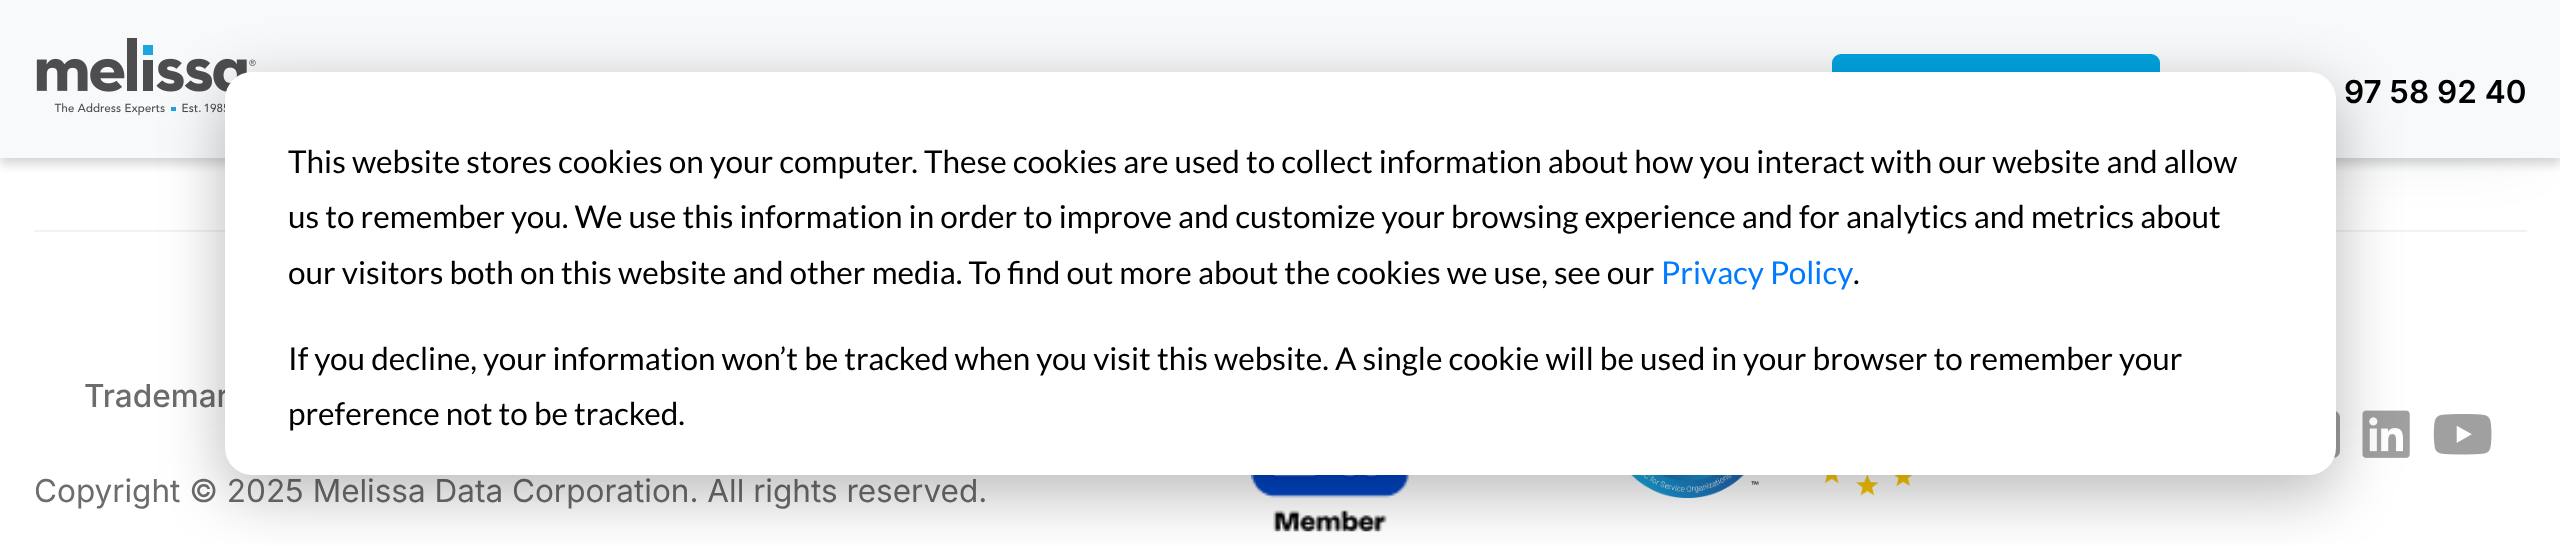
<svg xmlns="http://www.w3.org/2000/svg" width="2560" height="545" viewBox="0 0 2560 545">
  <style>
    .t1 { font: 600 31.5px Inter; fill: #000; }
    .t2 { font: 500 31.5px Inter; fill: #6c6c6c; }
    .t3 { font: 31.5px Inter; fill: #6c6c6c; }
    .t4 { font: 31.5px Lato; fill: #000; }
    .t5 { font: 31.5px Lato; fill: #007bff; }
  </style>
  <rect width="100%" height="100%" fill="#fff"/>
  <rect x="0" y="7" width="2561" height="157" fill="#0000002b" filter="blur(5.5px)"/>
  <rect x="1953" y="-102" width="574" height="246" fill="#1622331a" filter="blur(34px)"/>
  <rect x="0" y="0" width="2560" height="158" fill="#f8f9fa"/>
  <image x="36" y="38" width="220" height="78" href="images/1.png"/>
  <rect x="1832" y="54" width="328" height="72" rx="9" fill="#00a3e0"/>
  <text x="2344" y="103" class="t1">97 58 92 40</text>
  <rect x="34" y="230" width="2493" height="2" fill="#f2f2f2"/>
  <text x="84" y="407" class="t2">Trademar</text>
  <text x="34" y="502" class="t3">Copyright © 2025 Melissa Data Corporation. All rights reserved.</text>
  <image x="2334" y="411" width="6" height="47" href="images/2.png"/>
  <image x="2362" y="410" width="48" height="48" href="images/3.png"/>
  <image x="2433" y="414" width="59" height="41" href="images/4.png"/>
  <image x="1251" y="475" width="158" height="57" href="images/5.png"/>
  <image x="1631" y="475" width="128" height="23" href="images/6.png"/>
  <image x="1824" y="475" width="89" height="21" href="images/7.png"/>
  <rect x="225" y="90" width="2111" height="403" rx="27" fill="#00000047" filter="blur(31.5px)"/>
  <rect x="225" y="72" width="2111" height="403" rx="27" fill="#fff"/>
  <text x="288" y="173" class="t4">This website stores cookies on your computer. These cookies are used to collect information about how you interact with our website and allow</text>
  <text x="288" y="228" class="t4">us to remember you. We use this information in order to improve and customize your browsing experience and for analytics and metrics about</text>
  <text x="288" y="284" class="t4">our visitors both on this website and other media. To find out more about the cookies we use, see our</text>
  <text x="1661" y="284" class="t5">Privacy Policy</text>
  <text x="1853" y="284" class="t4">.</text>
  <text x="288" y="370" class="t4">If you decline, your information won’t be tracked when you visit this website. A single cookie will be used in your browser to remember your</text>
  <text x="288" y="425" class="t4">preference not to be tracked.</text>
</svg>
